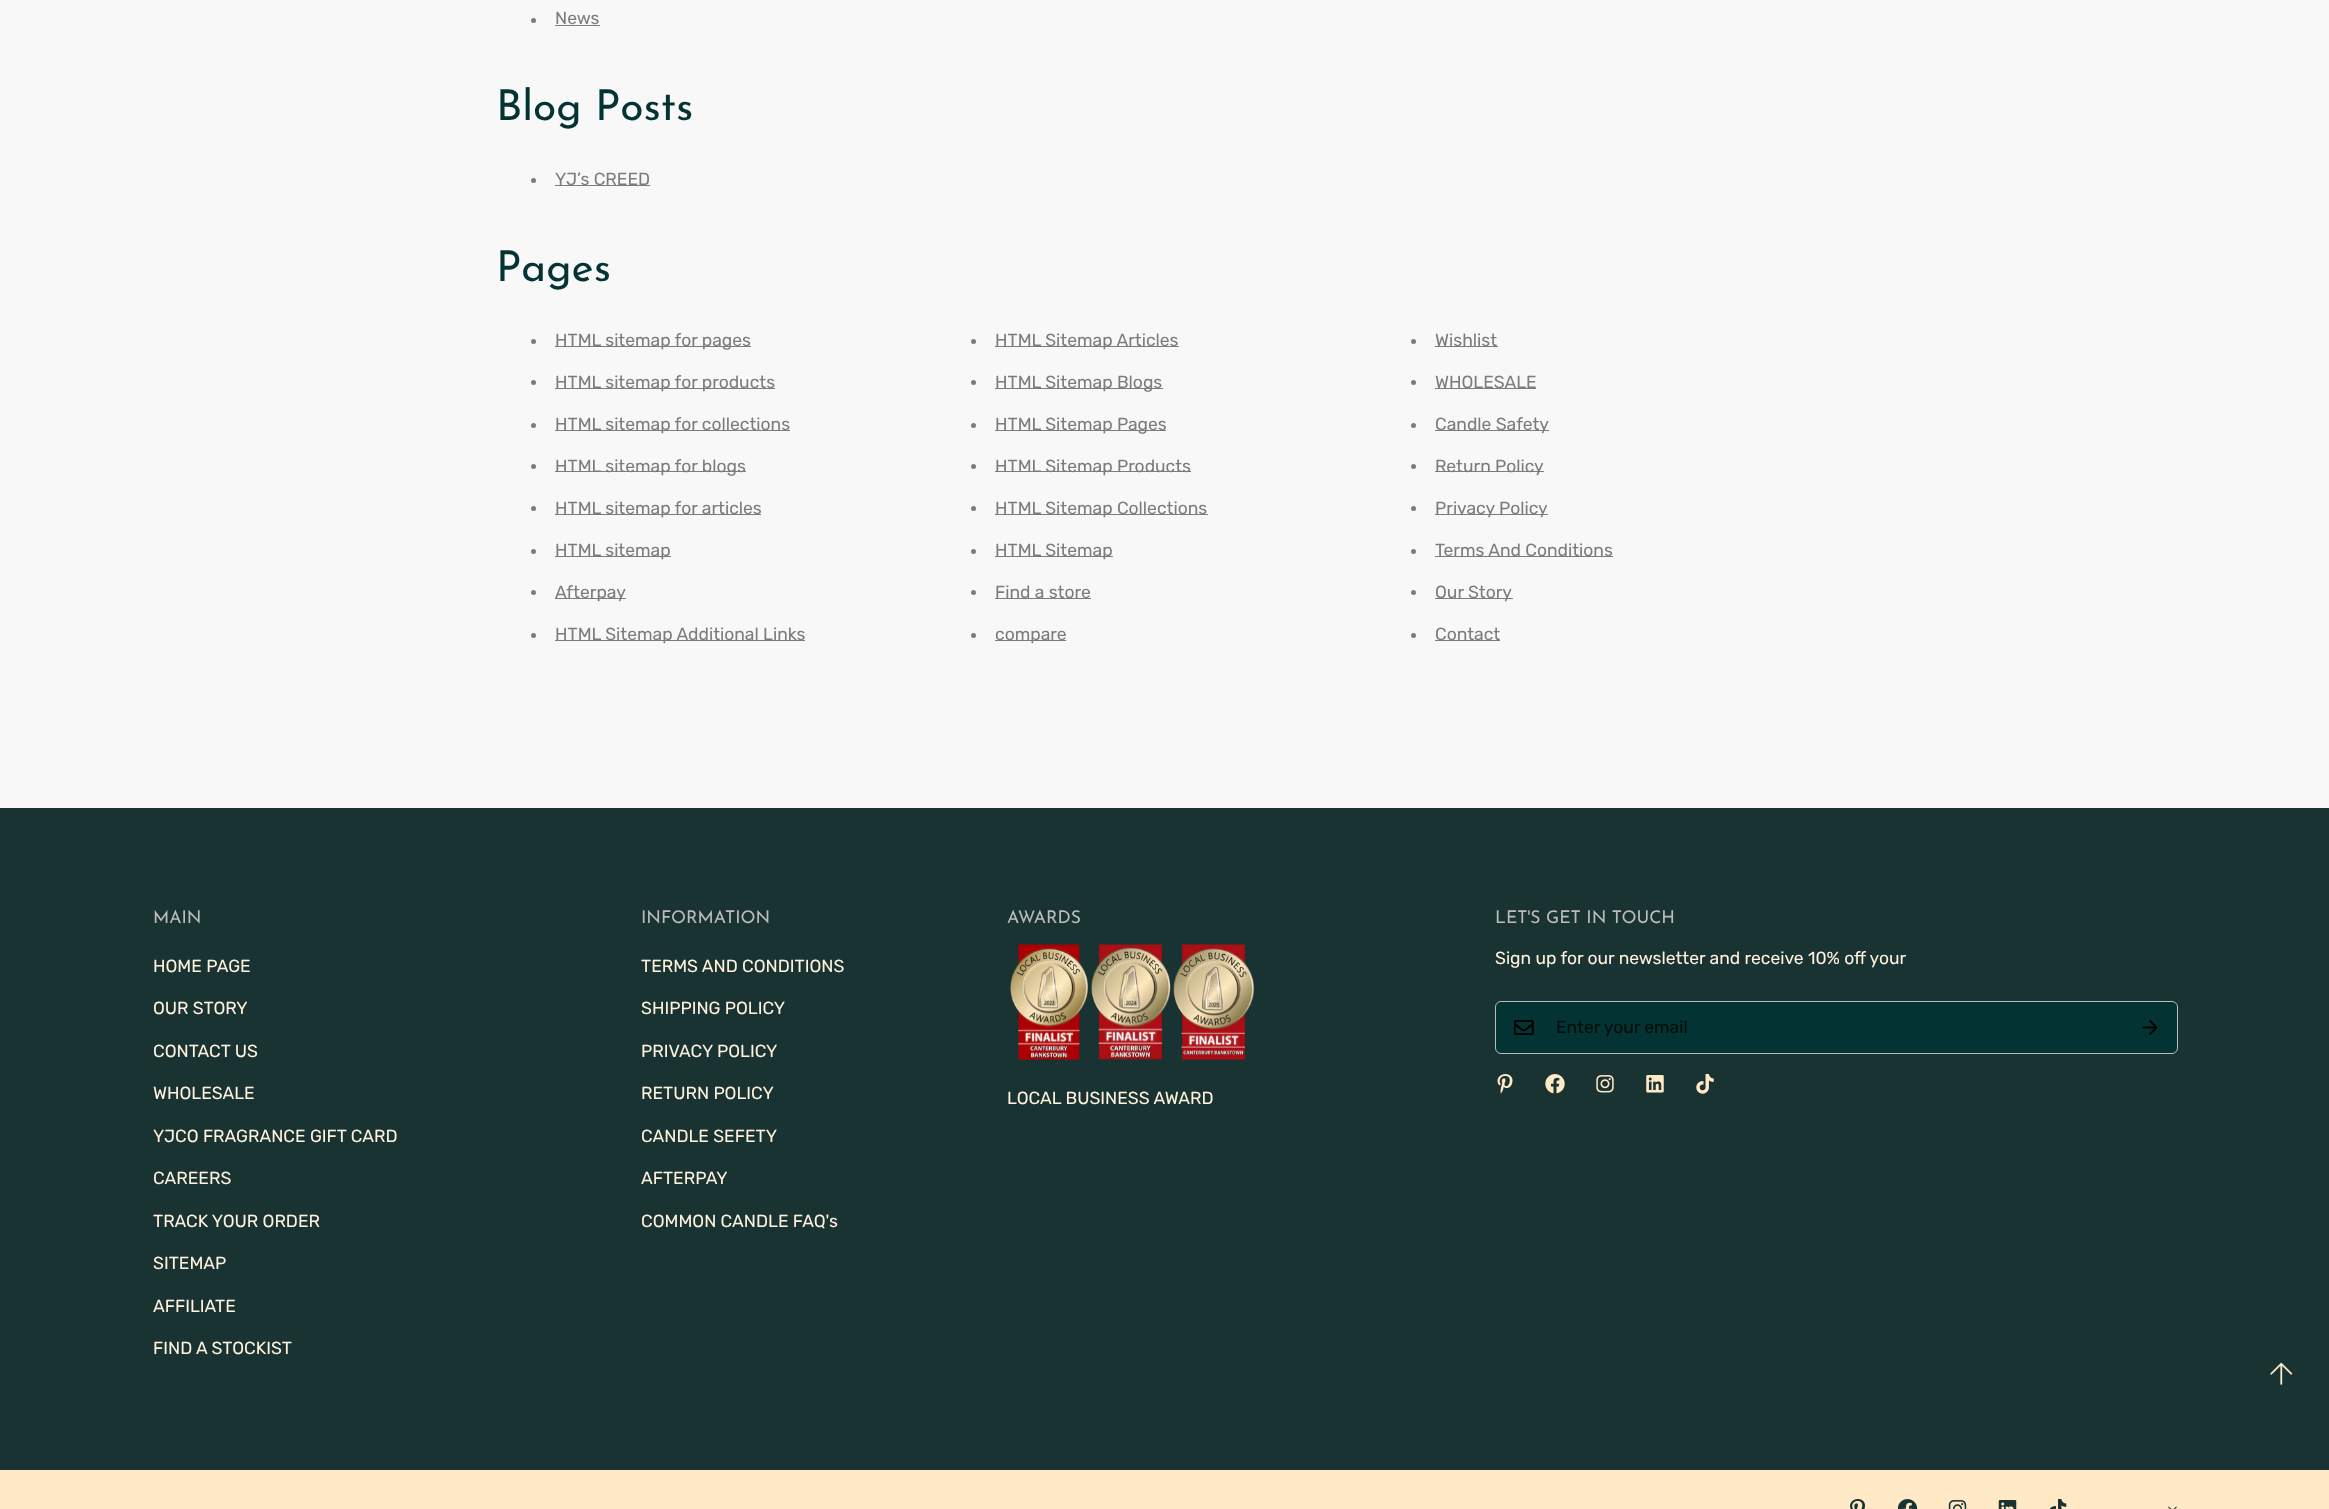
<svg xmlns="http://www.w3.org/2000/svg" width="2329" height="1509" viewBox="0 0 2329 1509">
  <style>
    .t1 { font: 17.5px Rubik; fill: #7c7c7c; }
    .t2 { font: 42.5px Josefin Sans; fill: #033332; }
    .t3 { font: 17.5px Josefin Sans; fill: #bcbcbc; }
    .t4 { font: 17.5px Rubik; fill: #fff2de; }
    .t5 { font: 17.5px Rubik; fill: #010d0d; }
  </style>
  <rect width="100%" height="100%" fill="#f8f8f8"/>
  <circle cx="533.5" cy="20.5" r="2.5" fill="#7c7c7c"/>
  <text x="555" y="24" class="t1">News</text>
  <rect x="555" y="25" width="45" height="1" fill="#7c7c7c"/>
  <text x="496" y="120" class="t2">Blog Posts</text>
  <circle cx="533.5" cy="180.5" r="2.5" fill="#7c7c7c"/>
  <text x="555" y="185" class="t1">YJ’s CREED</text>
  <rect x="555" y="185" width="95" height="1" fill="#7c7c7c"/>
  <text x="496" y="281" class="t2">Pages</text>
  <circle cx="533.5" cy="341.5" r="2.5" fill="#7c7c7c"/>
  <text x="555" y="346" class="t1">HTML sitemap for pages</text>
  <rect x="555" y="346" width="196" height="1" fill="#7c7c7c"/>
  <circle cx="973.5" cy="341.5" r="2.5" fill="#7c7c7c"/>
  <text x="995" y="346" class="t1">HTML Sitemap Articles</text>
  <rect x="995" y="346" width="184" height="1" fill="#7c7c7c"/>
  <circle cx="1413.5" cy="341.5" r="2.5" fill="#7c7c7c"/>
  <text x="1435" y="346" class="t1">Wishlist</text>
  <rect x="1435" y="346" width="63" height="1" fill="#7c7c7c"/>
  <circle cx="533.5" cy="382.5" r="2.5" fill="#7c7c7c"/>
  <text x="555" y="388" class="t1">HTML sitemap for products</text>
  <rect x="555" y="388" width="220" height="1" fill="#7c7c7c"/>
  <circle cx="973.5" cy="382.5" r="2.5" fill="#7c7c7c"/>
  <text x="995" y="388" class="t1">HTML Sitemap Blogs</text>
  <rect x="995" y="388" width="168" height="1" fill="#7c7c7c"/>
  <circle cx="1413.5" cy="382.5" r="2.5" fill="#7c7c7c"/>
  <text x="1435" y="388" class="t1">WHOLESALE</text>
  <rect x="1435" y="388" width="101" height="1" fill="#7c7c7c"/>
  <circle cx="533.5" cy="425.5" r="2.5" fill="#7c7c7c"/>
  <text x="555" y="430" class="t1">HTML sitemap for collections</text>
  <rect x="555" y="430" width="235" height="1" fill="#7c7c7c"/>
  <circle cx="973.5" cy="425.5" r="2.5" fill="#7c7c7c"/>
  <text x="995" y="430" class="t1">HTML Sitemap Pages</text>
  <rect x="995" y="430" width="171" height="1" fill="#7c7c7c"/>
  <circle cx="1413.5" cy="425.5" r="2.5" fill="#7c7c7c"/>
  <text x="1435" y="430" class="t1">Candle Safety</text>
  <rect x="1435" y="430" width="114" height="1" fill="#7c7c7c"/>
  <circle cx="533.5" cy="466.5" r="2.5" fill="#7c7c7c"/>
  <text x="555" y="472" class="t1">HTML sitemap for blogs</text>
  <rect x="555" y="471" width="191" height="1" fill="#7c7c7c"/>
  <circle cx="973.5" cy="466.5" r="2.5" fill="#7c7c7c"/>
  <text x="995" y="472" class="t1">HTML Sitemap Products</text>
  <rect x="995" y="471" width="196" height="1" fill="#7c7c7c"/>
  <circle cx="1413.5" cy="466.5" r="2.5" fill="#7c7c7c"/>
  <text x="1435" y="472" class="t1">Return Policy</text>
  <rect x="1435" y="471" width="109" height="1" fill="#7c7c7c"/>
  <circle cx="533.5" cy="508.5" r="2.5" fill="#7c7c7c"/>
  <text x="555" y="514" class="t1">HTML sitemap for articles</text>
  <rect x="555" y="514" width="206" height="1" fill="#7c7c7c"/>
  <circle cx="973.5" cy="508.5" r="2.5" fill="#7c7c7c"/>
  <text x="995" y="514" class="t1">HTML Sitemap Collections</text>
  <rect x="995" y="514" width="213" height="1" fill="#7c7c7c"/>
  <circle cx="1413.5" cy="508.5" r="2.5" fill="#7c7c7c"/>
  <text x="1435" y="514" class="t1">Privacy Policy</text>
  <rect x="1435" y="514" width="113" height="1" fill="#7c7c7c"/>
  <circle cx="533.5" cy="551.5" r="2.5" fill="#7c7c7c"/>
  <text x="555" y="556" class="t1">HTML sitemap</text>
  <rect x="555" y="556" width="116" height="1" fill="#7c7c7c"/>
  <circle cx="973.5" cy="551.5" r="2.5" fill="#7c7c7c"/>
  <text x="995" y="556" class="t1">HTML Sitemap</text>
  <rect x="995" y="556" width="118" height="1" fill="#7c7c7c"/>
  <circle cx="1413.5" cy="551.5" r="2.5" fill="#7c7c7c"/>
  <text x="1435" y="556" class="t1">Terms And Conditions</text>
  <rect x="1435" y="556" width="178" height="1" fill="#7c7c7c"/>
  <circle cx="533.5" cy="592.5" r="2.5" fill="#7c7c7c"/>
  <text x="555" y="598" class="t1">Afterpay</text>
  <rect x="555" y="598" width="71" height="1" fill="#7c7c7c"/>
  <circle cx="973.5" cy="592.5" r="2.5" fill="#7c7c7c"/>
  <text x="995" y="598" class="t1">Find a store</text>
  <rect x="995" y="598" width="96" height="1" fill="#7c7c7c"/>
  <circle cx="1413.5" cy="592.5" r="2.5" fill="#7c7c7c"/>
  <text x="1435" y="598" class="t1">Our Story</text>
  <rect x="1435" y="598" width="78" height="1" fill="#7c7c7c"/>
  <circle cx="533.5" cy="635.5" r="2.5" fill="#7c7c7c"/>
  <text x="555" y="640" class="t1">HTML Sitemap Additional Links</text>
  <rect x="555" y="640" width="250" height="1" fill="#7c7c7c"/>
  <circle cx="973.5" cy="635.5" r="2.5" fill="#7c7c7c"/>
  <text x="995" y="640" class="t1">compare</text>
  <rect x="995" y="640" width="71" height="1" fill="#7c7c7c"/>
  <circle cx="1413.5" cy="635.5" r="2.5" fill="#7c7c7c"/>
  <text x="1435" y="640" class="t1">Contact</text>
  <rect x="1435" y="640" width="65" height="1" fill="#7c7c7c"/>
  <rect x="0" y="808" width="2329" height="662" fill="#193332"/>
  <text x="153" y="923" class="t3">MAIN</text>
  <text x="153" y="972" class="t4">HOME PAGE</text>
  <text x="153" y="1014" class="t4">OUR STORY</text>
  <text x="153" y="1057" class="t4">CONTACT US</text>
  <text x="153" y="1099" class="t4">WHOLESALE</text>
  <text x="153" y="1142" class="t4">YJCO FRAGRANCE GIFT CARD</text>
  <text x="153" y="1184" class="t4">CAREERS</text>
  <text x="153" y="1227" class="t4">TRACK YOUR ORDER</text>
  <text x="153" y="1269" class="t4">SITEMAP</text>
  <text x="153" y="1312" class="t4">AFFILIATE</text>
  <text x="153" y="1354" class="t4">FIND A STOCKIST</text>
  <text x="641" y="923" class="t3">INFORMATION</text>
  <text x="641" y="972" class="t4">TERMS AND CONDITIONS</text>
  <text x="641" y="1014" class="t4">SHIPPING POLICY</text>
  <text x="641" y="1057" class="t4">PRIVACY POLICY</text>
  <text x="641" y="1099" class="t4">RETURN POLICY</text>
  <text x="641" y="1142" class="t4">CANDLE SEFETY</text>
  <text x="641" y="1184" class="t4">AFTERPAY</text>
  <text x="641" y="1227" class="t4">COMMON CANDLE FAQ's</text>
  <text x="1007" y="923" class="t3">AWARDS</text>
  <image x="1010" y="944" width="244" height="116" href="images/1.png"/>
  <text x="1007" y="1104" class="t4">LOCAL BUSINESS AWARD</text>
  <text x="1495" y="923" class="t3">LET'S GET IN TOUCH</text>
  <text x="1495" y="964" class="t4">Sign up for our newsletter and receive 10% off your</text>
  <rect x="1495.5" y="1001.5" width="682" height="52" rx="5.5" fill="#033332" stroke="#bcbcbc"/>
  <image x="1514" y="1020" width="20" height="15" href="images/2.png"/>
  <text x="1556" y="1033" class="t5">Enter your email</text>
  <image x="2142" y="1020" width="16" height="15" href="images/3.png"/>
  <image x="1497" y="1074" width="16" height="20" href="images/4.png"/>
  <image x="1545" y="1074" width="20" height="20" href="images/5.png"/>
  <image x="1596" y="1075" width="18" height="18" href="images/6.png"/>
  <image x="1646" y="1075" width="18" height="18" href="images/7.png"/>
  <image x="1696" y="1074" width="18" height="20" href="images/8.png"/>
  <rect x="0" y="1470" width="2329" height="39" fill="#ffe9c6"/>
  <image x="1850" y="1499" width="15" height="10" href="images/9.png"/>
  <image x="1898" y="1499" width="20" height="10" href="images/10.png"/>
  <image x="1948" y="1500" width="19" height="9" href="images/11.png"/>
  <image x="1998" y="1500" width="19" height="9" href="images/12.png"/>
  <image x="2049" y="1499" width="18" height="10" href="images/13.png"/>
  <image x="2168" y="1506" width="9" height="3" href="images/14.png"/>
  <image x="2270" y="1362" width="23" height="23" href="images/15.png"/>
</svg>
